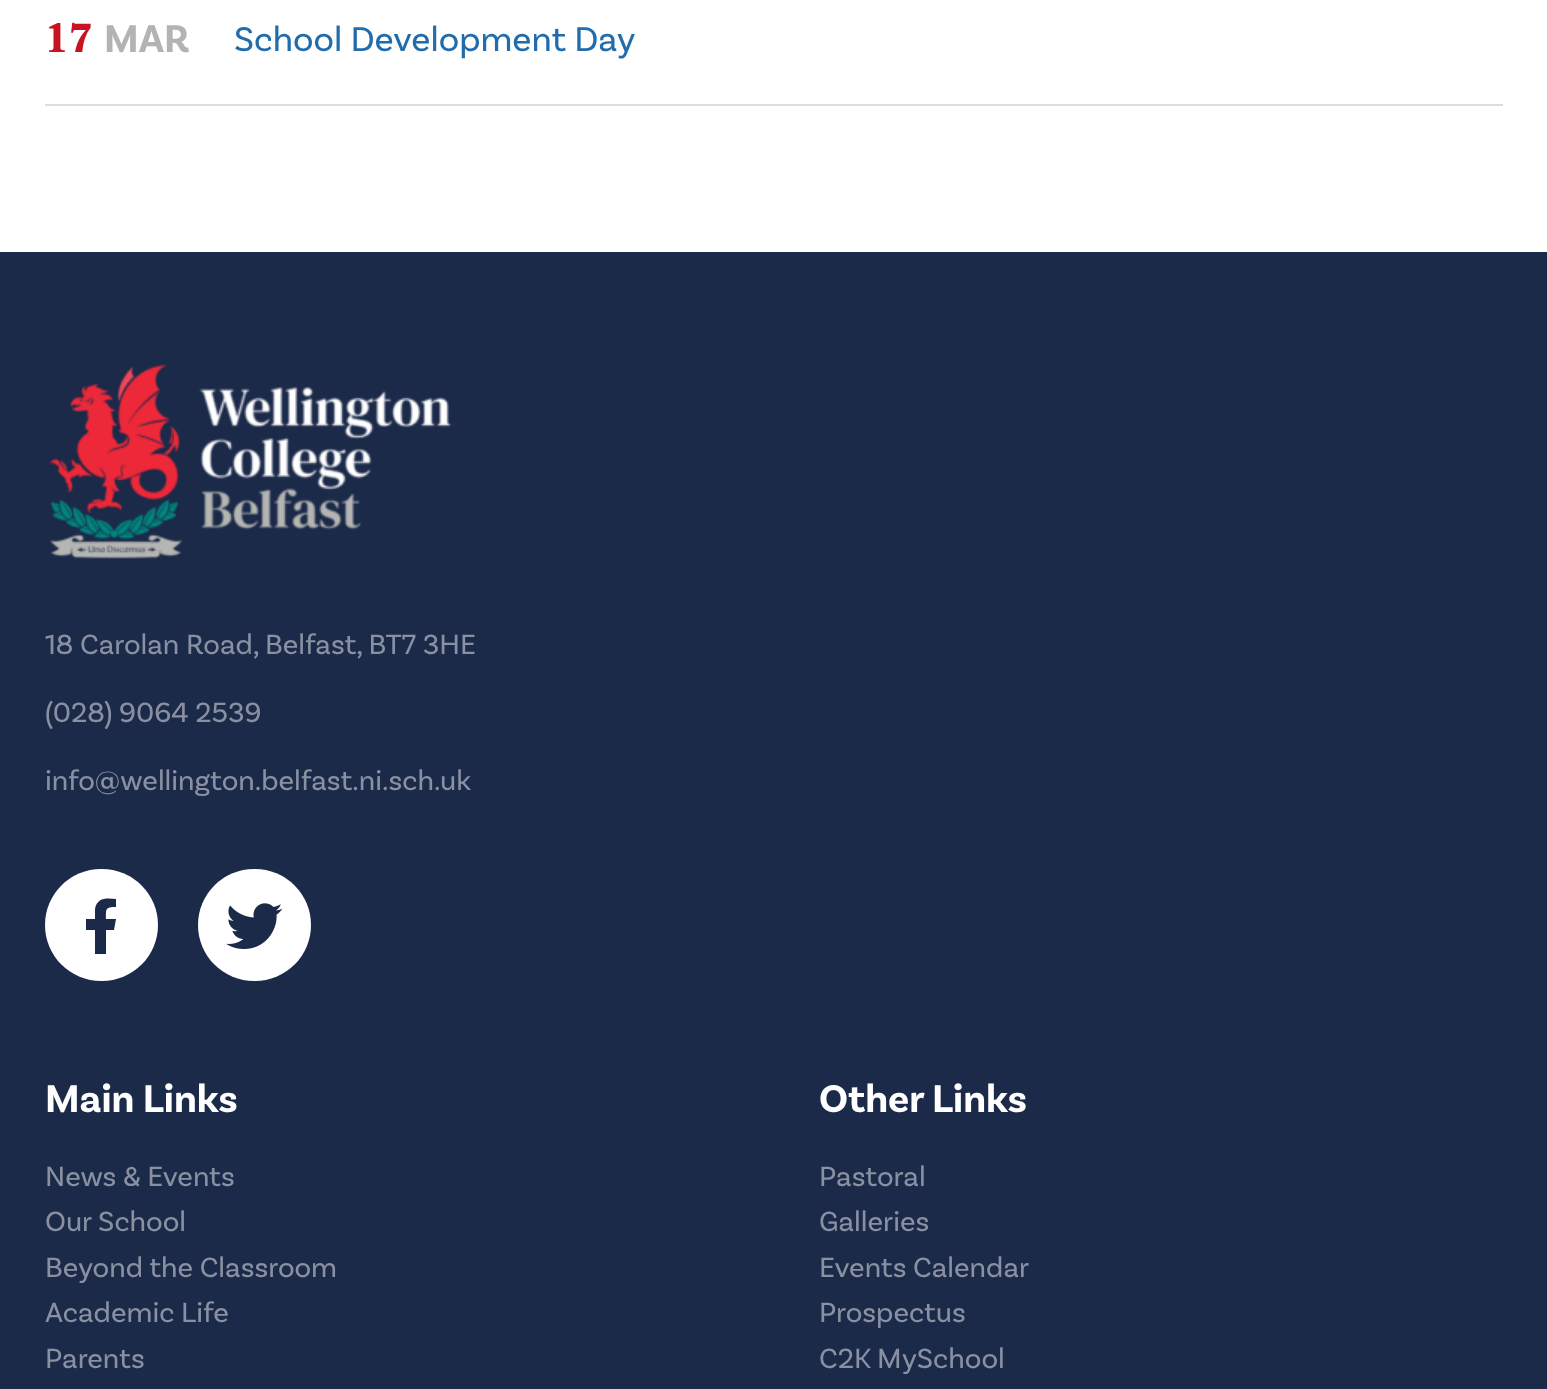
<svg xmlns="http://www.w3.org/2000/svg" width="1547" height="1389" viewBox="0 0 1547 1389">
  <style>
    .t1 { font: bold 40.5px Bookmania; fill: #c81422; }
    .t2 { font: bold 40.5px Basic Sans; fill: #b3b3b3; }
    .t3 { font: 36px Basic Sans; fill: #206cac; }
    .t4 { font: 29.25px Basic Sans; fill: #8990a1; }
    .t5 { font: bold 40.5px Basic Sans; fill: #fff; }
  </style>
  <rect width="100%" height="100%" fill="#fff"/>
  <rect x="45" y="104" width="1458" height="2" fill="#dcdcdc"/>
  <text x="45" y="52" class="t1">17</text>
  <text x="104" y="52" class="t2">MAR</text>
  <text x="234" y="51" class="t3">School Development Day</text>
  <rect x="0" y="252" width="1547" height="1137" fill="#1c2a4a"/>
  <image x="49" y="364" width="403" height="195" href="images/1.png"/>
  <text x="45" y="654" class="t4">18 Carolan Road, Belfast, BT7 3HE</text>
  <text x="45" y="722" class="t4">(028) 9064 2539</text>
  <text x="45" y="790" class="t4">info@wellington.belfast.ni.sch.uk</text>
  <rect x="45" y="869" width="113" height="112" rx="56" fill="#fff"/>
  <path d="M114 930H106V954H95V930H86V919H95V909C97 897 107 898 116 899V907C105 907 106 909 106 919H116Z" fill="#1c2a4a"/>
  <rect x="198" y="869" width="113" height="112" rx="56" fill="#fff"/>
  <image x="226" y="903" width="57" height="46" href="images/2.png"/>
  <text x="45" y="1112" class="t5">Main Links</text>
  <text x="45" y="1186" class="t4">News &amp; Events</text>
  <text x="45" y="1231" class="t4">Our School</text>
  <text x="45" y="1277" class="t4">Beyond the Classroom</text>
  <text x="45" y="1322" class="t4">Academic Life</text>
  <text x="45" y="1368" class="t4">Parents</text>
  <text x="819" y="1112" class="t5">Other Links</text>
  <text x="819" y="1186" class="t4">Pastoral</text>
  <text x="819" y="1231" class="t4">Galleries</text>
  <text x="819" y="1277" class="t4">Events Calendar</text>
  <text x="819" y="1322" class="t4">Prospectus</text>
  <text x="819" y="1368" class="t4">C2K MySchool</text>
</svg>
